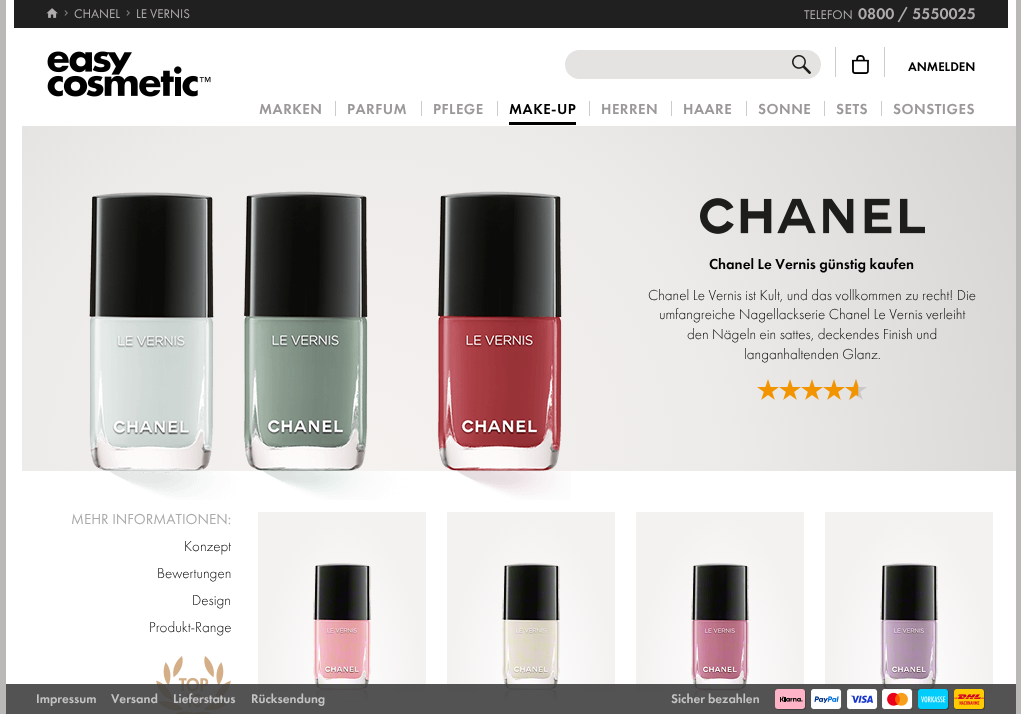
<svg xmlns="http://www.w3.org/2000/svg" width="1021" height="714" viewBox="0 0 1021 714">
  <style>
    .t1 { font: 13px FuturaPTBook; fill: #b0acae; }
    .t2 { font: 16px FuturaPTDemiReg; fill: #b0acae; }
    .t3 { font: 13px FuturaPTDemiReg; fill: #000; }
    .t4 { font: 15px FuturaPTDemiReg; letter-spacing: 0.5px; fill: #9b9899; }
    .t5 { font: 15px FuturaPTDemiReg; letter-spacing: 0.5px; fill: #000; }
    .t6 { font: 15px FuturaPTDemiReg; fill: #000; }
    .t7 { font: 300 15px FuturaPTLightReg; fill: #000; }
    .t8 { font: 15px FuturaPTBook; fill: #aaa; }
    .t9 { font: 13px FuturaPTDemiReg; fill: #c3c3c3; }
  </style>
  <defs>
    <radialGradient id="g1" gradientUnits="userSpaceOnUse" cx="360" cy="471" r="741"><stop offset="0" stop-color="#f5f2f0"/><stop offset="0.5" stop-color="#edebea"/><stop offset="1" stop-color="#d5d4d2"/></radialGradient>
    <radialGradient id="g2" gradientUnits="userSpaceOnUse" cx="0" cy="0" r="1" gradientTransform="matrix(119 0 0 255 342 692)"><stop offset="0" stop-color="#fff"/><stop offset="0.69" stop-color="#f4f2f1"/></radialGradient>
    <radialGradient id="g3" gradientUnits="userSpaceOnUse" cx="0" cy="0" r="1" gradientTransform="matrix(119 0 0 255 531 692)"><stop offset="0" stop-color="#fff"/><stop offset="0.69" stop-color="#f4f2f1"/></radialGradient>
    <radialGradient id="g4" gradientUnits="userSpaceOnUse" cx="0" cy="0" r="1" gradientTransform="matrix(119 0 0 255 720 692)"><stop offset="0" stop-color="#fff"/><stop offset="0.69" stop-color="#f4f2f1"/></radialGradient>
    <radialGradient id="g5" gradientUnits="userSpaceOnUse" cx="0" cy="0" r="1" gradientTransform="matrix(119 0 0 255 909 692)"><stop offset="0" stop-color="#fff"/><stop offset="0.69" stop-color="#f4f2f1"/></radialGradient>
  </defs>
  <rect width="100%" height="100%" fill="#fff"/>
  <rect x="0" y="0" width="6" height="714" fill="#b9b8b6"/>
  <rect x="1016" y="0" width="5" height="714" fill="#b9b8b6"/>
  <rect x="14" y="0" width="994" height="28" fill="#202020"/>
  <image x="46" y="8" width="12" height="10" href="images/1.png"/>
  <image x="64" y="10" width="4" height="6" href="images/2.png"/>
  <text x="74" y="18" class="t1">CHANEL</text>
  <image x="126" y="10" width="4" height="6" href="images/2.png"/>
  <text x="136" y="18" class="t1">LE VERNIS</text>
  <text x="804" y="19" class="t1">TELEFON</text>
  <text x="858" y="19" class="t2">0800 / 5550025</text>
  <image x="47" y="51" width="164" height="46" href="images/3.png"/>
  <rect x="565" y="50" width="256" height="29" rx="14.5" fill="#e5e3e1"/>
  <image x="792" y="55" width="19" height="19" href="images/4.png"/>
  <rect x="835" y="47" width="1" height="30" fill="#ccc"/>
  <image x="852" y="55" width="17" height="19" href="images/5.png"/>
  <rect x="884" y="47" width="1" height="30" fill="#ccc"/>
  <text x="908" y="71" class="t3">ANMELDEN</text>
  <text x="259" y="114" class="t4">MARKEN</text>
  <rect x="335" y="101" width="1" height="15" fill="#ccc"/>
  <text x="347" y="114" class="t4">PARFUM</text>
  <rect x="421" y="101" width="1" height="15" fill="#ccc"/>
  <text x="433" y="114" class="t4">PFLEGE</text>
  <rect x="497" y="101" width="1" height="15" fill="#ccc"/>
  <text x="509" y="114" class="t5">MAKE‑UP</text>
  <rect x="509" y="122" width="67" height="3" fill="#000"/>
  <rect x="589" y="101" width="1" height="15" fill="#ccc"/>
  <text x="601" y="114" class="t4">HERREN</text>
  <rect x="671" y="101" width="1" height="15" fill="#ccc"/>
  <text x="683" y="114" class="t4">HAARE</text>
  <rect x="746" y="101" width="1" height="15" fill="#ccc"/>
  <text x="758" y="114" class="t4">SONNE</text>
  <rect x="824" y="101" width="1" height="15" fill="#ccc"/>
  <text x="836" y="114" class="t4">SETS</text>
  <rect x="881" y="101" width="1" height="15" fill="#ccc"/>
  <text x="893" y="114" class="t4">SONSTIGES</text>
  <rect x="22" y="126" width="994" height="345" fill="url(#g1)"/>
  <image x="89" y="191" width="482" height="309" href="images/6.png"/>
  <image x="700" y="198" width="225" height="36" href="images/7.png"/>
  <text x="709" y="269" class="t6">Chanel Le Vernis günstig kaufen</text>
  <text x="648" y="300" class="t7">Chanel Le Vernis ist Kult, und das vollkommen zu recht! Die</text>
  <text x="659" y="319" class="t7">umfangreiche Nagellackserie Chanel Le Vernis verleiht</text>
  <text x="687" y="339" class="t7">den Nägeln ein sattes, deckendes Finish und</text>
  <text x="744" y="359" class="t7">langanhaltenden Glanz.</text>
  <image x="757" y="379" width="22" height="21" href="images/8.png"/>
  <image x="779" y="379" width="22" height="21" href="images/9.png"/>
  <image x="801" y="379" width="22" height="21" href="images/10.png"/>
  <image x="823" y="379" width="22" height="21" href="images/11.png"/>
  <image x="845" y="379" width="22" height="21" href="images/12.png"/>
  <text x="71" y="524" class="t8">MEHR INFORMATIONEN:</text>
  <text x="184" y="551" class="t7">Konzept</text>
  <text x="157" y="578" class="t7">Bewertungen</text>
  <text x="192" y="605" class="t7">Design</text>
  <text x="149" y="632" class="t7">Produkt-Range</text>
  <image x="156" y="656" width="75" height="58" href="images/13.png"/>
  <rect x="258" y="512" width="168" height="180" fill="url(#g2)"/>
  <image x="313" y="563" width="58" height="144" href="images/14.png"/>
  <rect x="447" y="512" width="168" height="180" fill="url(#g3)"/>
  <image x="502" y="563" width="58" height="143" href="images/15.png"/>
  <rect x="636" y="512" width="168" height="180" fill="url(#g4)"/>
  <image x="691" y="563" width="58" height="142" href="images/16.png"/>
  <rect x="825" y="512" width="168" height="180" fill="url(#g5)"/>
  <image x="880" y="563" width="58" height="143" href="images/17.png"/>
  <rect x="6" y="684" width="1010" height="30" fill="#404040e6"/>
  <text x="36" y="703" class="t9">Impressum</text>
  <text x="111" y="703" class="t9">Versand</text>
  <text x="173" y="703" class="t9">Lieferstatus</text>
  <text x="251" y="703" class="t9">Rücksendung</text>
  <text x="671" y="703" class="t9">Sicher bezahlen</text>
  <image x="775" y="689" width="31" height="21" href="images/18.png"/>
  <image x="811" y="689" width="31" height="21" href="images/19.png"/>
  <image x="847" y="689" width="31" height="21" href="images/20.png"/>
  <image x="882" y="689" width="31" height="21" href="images/21.png"/>
  <image x="918" y="689" width="31" height="21" href="images/22.png"/>
  <image x="954" y="689" width="31" height="21" href="images/23.png"/>
</svg>
